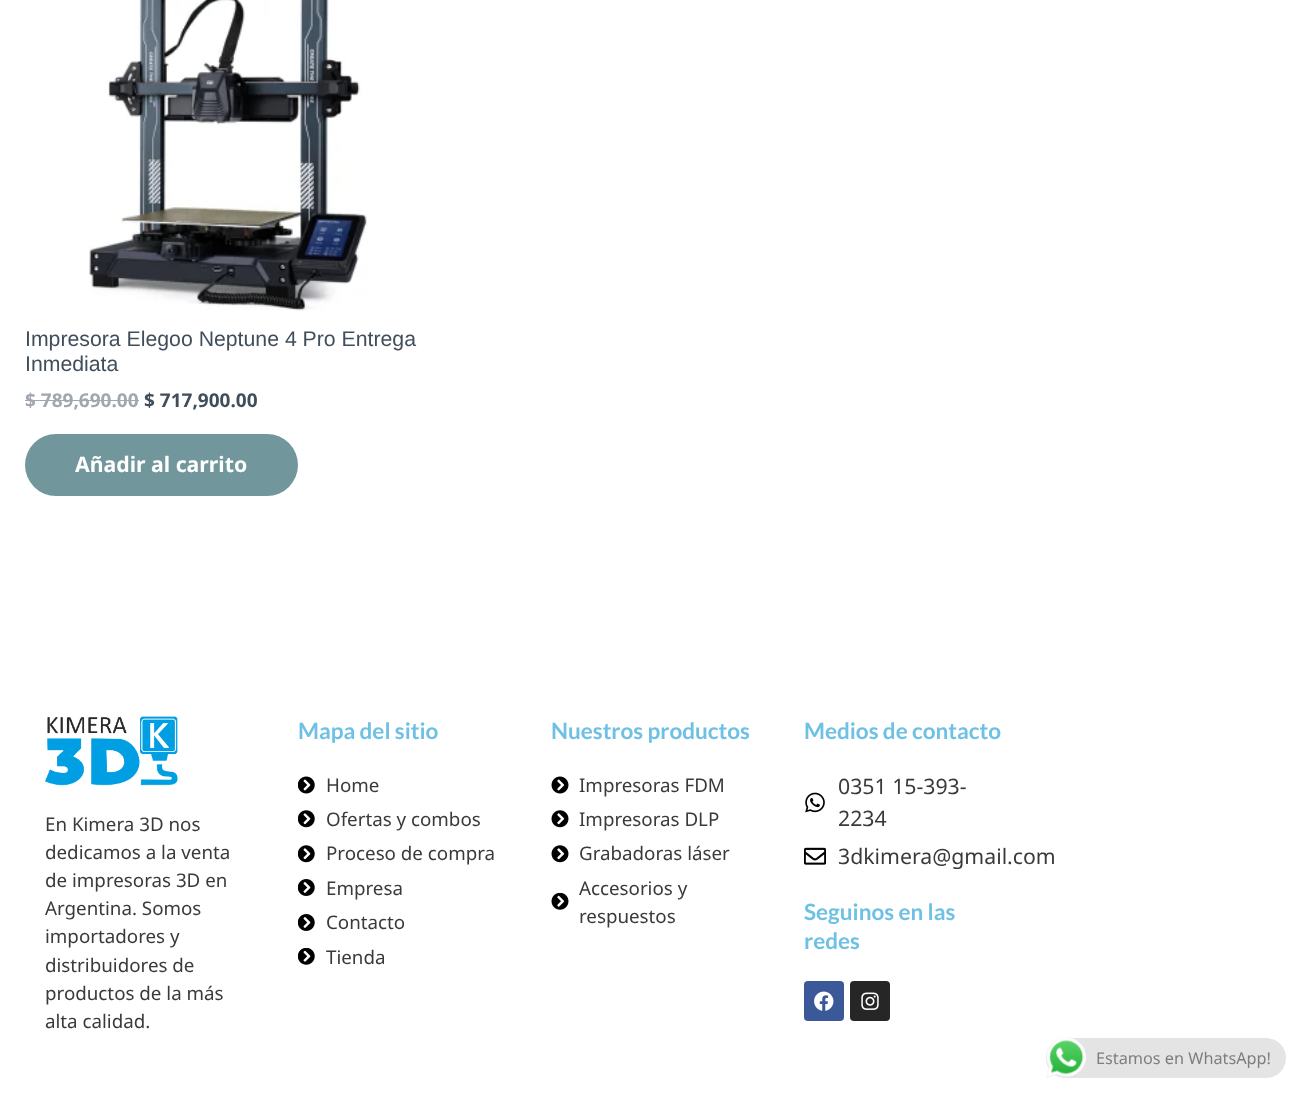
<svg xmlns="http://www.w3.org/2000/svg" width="1304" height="1096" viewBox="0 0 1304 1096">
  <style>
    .t1 { font: 21.25px Liberation Sans; fill: #404e5c; }
    .t2 { font: bold 19px Noto Sans; fill: #a0a7ae; }
    .t3 { font: bold 19px Noto Sans; fill: #404e5c; }
    .t4 { font: bold 21.25px Noto Sans; fill: #fff; }
    .t5 { font: 18.75px Noto Sans; fill: #3a3a3a; }
    .t6 { font: bold 22.5px Lato; fill: #6ec1e4; }
    .t7 { font: 21.25px Noto Sans; fill: #3a3a3a; }
    .t8 { font: 16.25px Noto Sans; fill: #7f7d7d; }
  </style>
  <rect width="100%" height="100%" fill="#fff"/>
  <image x="89" y="0" width="278" height="311" href="images/1.png"/>
  <text x="25" y="346" class="t1">Impresora Elegoo Neptune 4 Pro Entrega</text>
  <text x="25" y="371" class="t1">Inmediata</text>
  <text x="25" y="407" class="t2">$ 789,690.00</text>
  <rect x="25" y="400" width="114" height="1" fill="#a0a7ae"/>
  <text x="144" y="407" class="t3">$ 717,900.00</text>
  <rect x="25" y="434" width="273" height="62" rx="31" fill="#71979c"/>
  <text x="75" y="472" class="t4">Añadir al carrito</text>
  <image x="45" y="716" width="133" height="70" href="images/2.png"/>
  <text x="45" y="831" class="t5">En Kimera 3D nos</text>
  <text x="45" y="859" class="t5">dedicamos a la venta</text>
  <text x="45" y="887" class="t5">de impresoras 3D en</text>
  <text x="45" y="915" class="t5">Argentina. Somos</text>
  <text x="45" y="943" class="t5">importadores y</text>
  <text x="45" y="972" class="t5">distribuidores de</text>
  <text x="45" y="1000" class="t5">productos de la más</text>
  <text x="45" y="1028" class="t5">alta calidad.</text>
  <text x="298" y="739" class="t6">Mapa del sitio</text>
  <image x="298" y="776" width="17" height="18" href="images/3.png"/>
  <text x="326" y="792" class="t5">Home</text>
  <image x="298" y="810" width="17" height="18" href="images/4.png"/>
  <text x="326" y="826" class="t5">Ofertas y combos</text>
  <image x="298" y="845" width="17" height="18" href="images/4.png"/>
  <text x="326" y="860" class="t5">Proceso de compra</text>
  <image x="298" y="879" width="17" height="17" href="images/5.png"/>
  <text x="326" y="895" class="t5">Empresa</text>
  <image x="298" y="914" width="17" height="17" href="images/5.png"/>
  <text x="326" y="929" class="t5">Contacto</text>
  <image x="298" y="948" width="17" height="17" href="images/6.png"/>
  <text x="326" y="964" class="t5">Tienda</text>
  <text x="551" y="739" class="t6">Nuestros productos</text>
  <image x="551" y="776" width="18" height="18" href="images/7.png"/>
  <text x="579" y="792" class="t5">Impresoras FDM</text>
  <image x="551" y="810" width="18" height="18" href="images/8.png"/>
  <text x="579" y="826" class="t5">Impresoras DLP</text>
  <image x="551" y="845" width="18" height="18" href="images/8.png"/>
  <text x="579" y="860" class="t5">Grabadoras láser</text>
  <image x="551" y="893" width="18" height="17" href="images/9.png"/>
  <text x="579" y="895" class="t5">Accesorios y</text>
  <text x="579" y="923" class="t5">respuestos</text>
  <text x="804" y="739" class="t6">Medios de contacto</text>
  <image x="805" y="792" width="20" height="21" href="images/10.png"/>
  <text x="838" y="794" class="t7">0351 15-393-</text>
  <text x="838" y="826" class="t7">2234</text>
  <image x="804" y="847" width="22" height="18" href="images/11.png"/>
  <text x="838" y="864" class="t7">3dkimera@gmail.com</text>
  <text x="804" y="920" class="t6">Seguinos en las</text>
  <text x="804" y="949" class="t6">redes</text>
  <rect x="804" y="981" width="40" height="40" rx="4" fill="#3b5998"/>
  <image x="814" y="991" width="20" height="20" href="images/12.png"/>
  <rect x="850" y="981" width="40" height="40" rx="4" fill="#262626"/>
  <image x="861" y="992" width="18" height="18" href="images/13.png"/>
  <rect x="1046" y="1038" width="240" height="40" rx="20" fill="#e4e4e4"/>
  <image x="1046" y="1037" width="41" height="41" href="images/14.png"/>
  <text x="1096" y="1064" class="t8">Estamos en WhatsApp!</text>
</svg>
